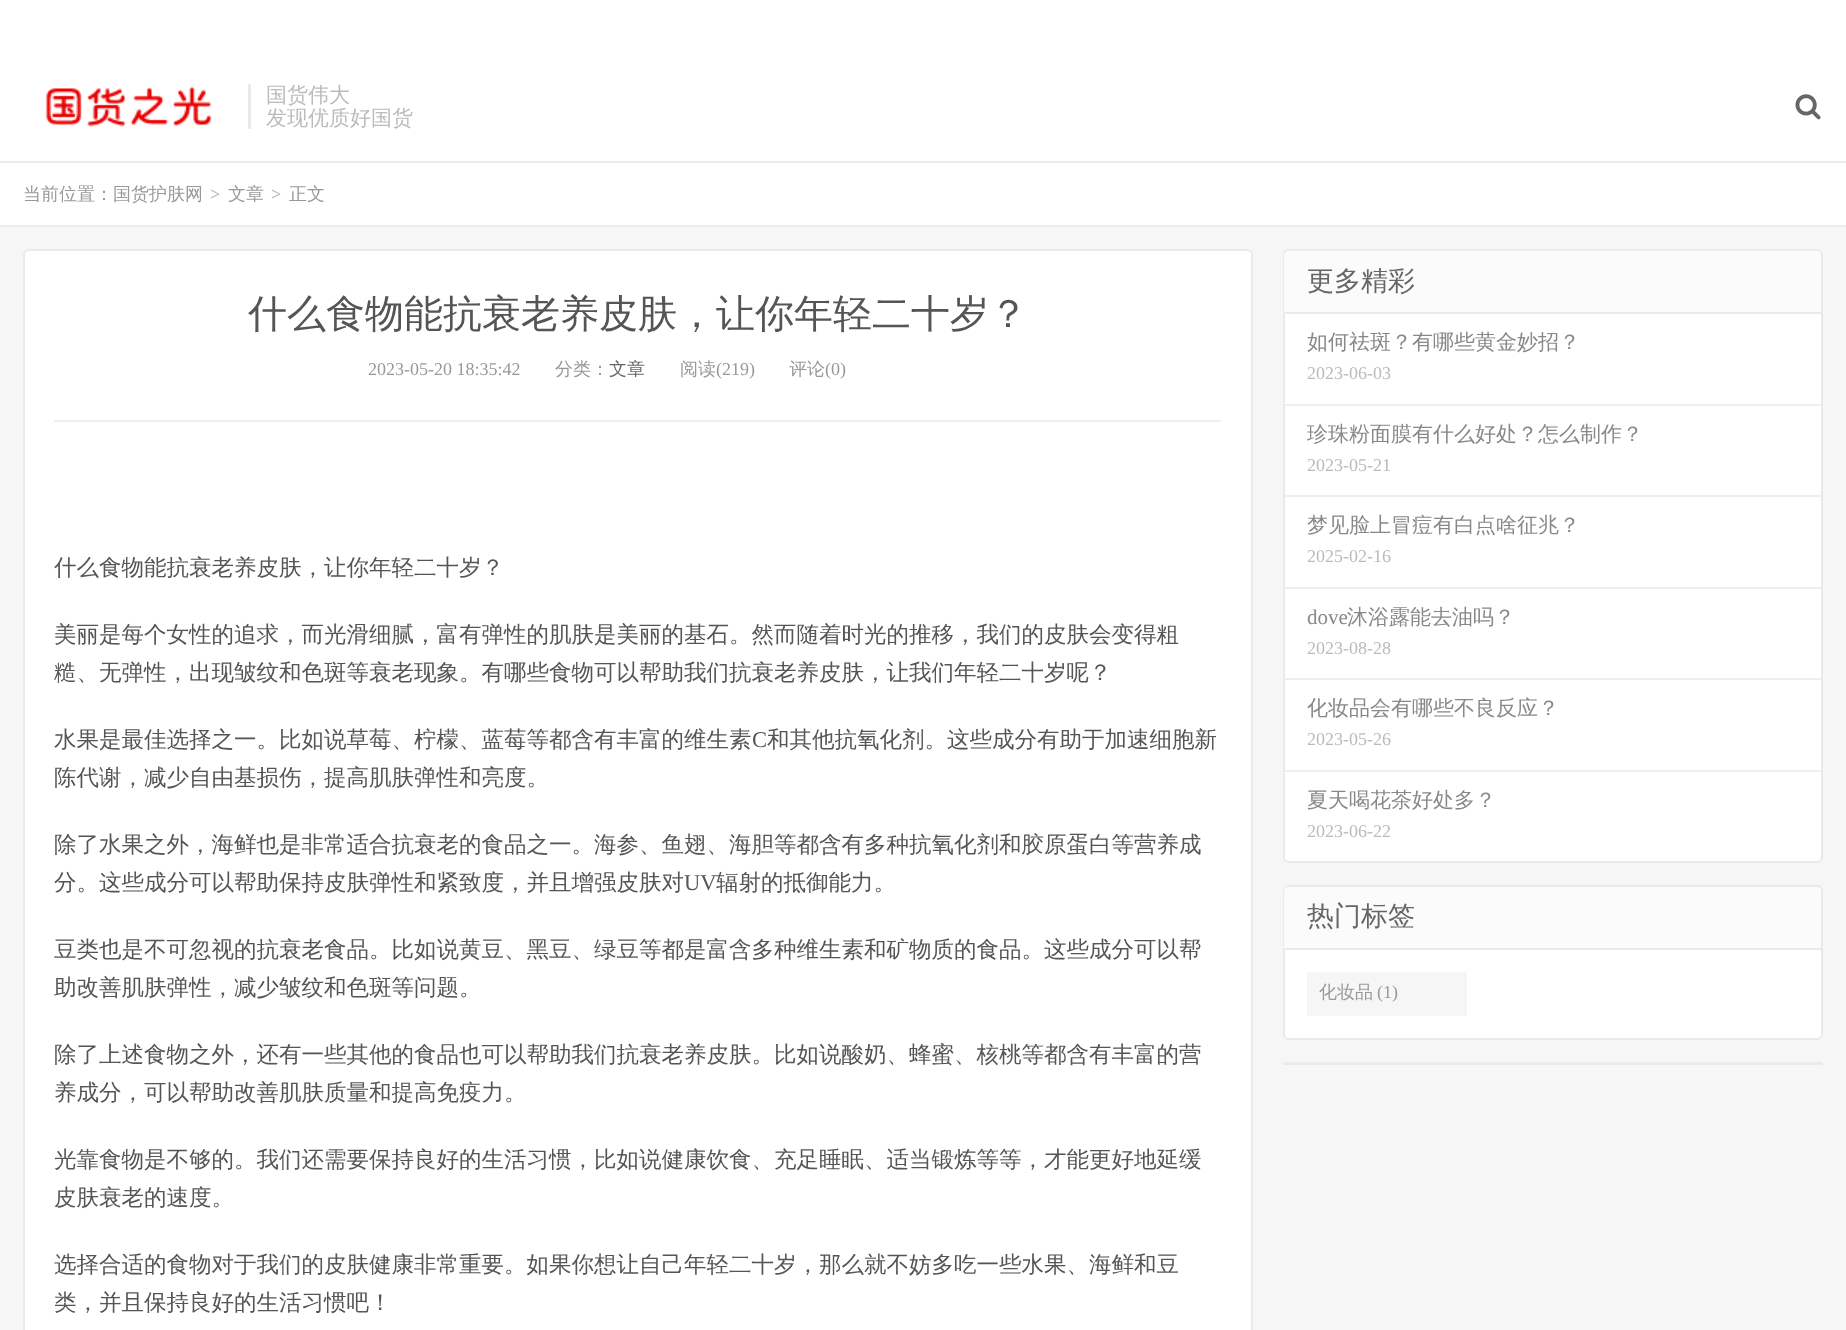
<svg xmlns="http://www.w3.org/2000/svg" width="1846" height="1330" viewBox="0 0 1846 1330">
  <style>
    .t1 { font: 500 21px WenQuanYi Zen Hei; fill: #bbb; }
    .t2 { font: 500 18px WenQuanYi Zen Hei; fill: #999; }
    .t3 { font: bold 18px Liberation Serif; fill: #bbb; }
    .t4 { font: 500 39px WenQuanYi Zen Hei; fill: #555; }
    .t5 { font: 18px Liberation Serif; fill: #999; }
    .t6 { font: 500 18px WenQuanYi Zen Hei; fill: #666; }
    .t7 { font: 500 22.5px WenQuanYi Zen Hei; fill: #555; }
    .t8 { font: 22.5px Liberation Serif; fill: #555; }
    .t9 { font: 500 27px WenQuanYi Zen Hei; fill: #666; }
    .t10 { font: 500 21px WenQuanYi Zen Hei; fill: #888; }
    .t11 { font: 18px Liberation Serif; fill: #bbb; }
    .t12 { font: 21px Liberation Serif; fill: #888; }
  </style>
  <rect width="100%" height="100%" fill="#f6f6f6"/>
  <rect x="0" y="0" width="1846" height="225" fill="#fff"/>
  <rect x="0" y="161" width="1846" height="2" fill="#00000014"/>
  <image x="46" y="86" width="166" height="41" href="images/1.png"/>
  <rect x="248" y="84" width="3" height="45" fill="#eaeaea"/>
  <text x="266" y="102" class="t1">国货伟大</text>
  <text x="266" y="125" class="t1">发现优质好国货</text>
  <image x="1795" y="94" width="26" height="26" href="images/2.png"/>
  <rect x="0" y="225" width="1846" height="2" fill="#ebebeb"/>
  <text x="23" y="200" class="t2">当前位置：国货护肤网</text>
  <text x="210" y="200" class="t3">&gt;</text>
  <text x="228" y="200" class="t2">文章</text>
  <text x="271" y="200" class="t3">&gt;</text>
  <text x="289" y="200" class="t2">正文</text>
  <rect x="24" y="250" width="1228" height="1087" rx="5" fill="#fff" stroke="#eaeaea" stroke-width="2"/>
  <rect x="54" y="420" width="1167" height="2" fill="#eee"/>
  <text x="248" y="327" class="t4">什么食物能抗衰老养皮肤，让你年轻二十岁？</text>
  <text x="368" y="375" class="t5">2023-05-20 18:35:42</text>
  <text x="555" y="375" class="t2">分类：</text>
  <text x="609" y="375" class="t6">文章</text>
  <text x="680" y="375" class="t2">阅读</text>
  <text x="716" y="375" class="t5">(219)</text>
  <text x="789" y="375" class="t2">评论</text>
  <text x="825" y="375" class="t5">(0)</text>
  <text x="54" y="575" class="t7">什么食物能抗衰老养皮肤，让你年轻二十岁？</text>
  <text x="54" y="642" class="t7">美丽是每个女性的追求，而光滑细腻，富有弹性的肌肤是美丽的基石。然而随着时光的推移，我们的皮肤会变得粗</text>
  <text x="54" y="680" class="t7">糙、无弹性，出现皱纹和色斑等衰老现象。有哪些食物可以帮助我们抗衰老养皮肤，让我们年轻二十岁呢？</text>
  <text x="54" y="747" class="t7">水果是最佳选择之一。比如说草莓、柠檬、蓝莓等都含有丰富的维生素</text>
  <text x="752" y="747" class="t8">C</text>
  <text x="767" y="747" class="t7">和其他抗氧化剂。这些成分有助于加速细胞新</text>
  <text x="54" y="785" class="t7">陈代谢，减少自由基损伤，提高肌肤弹性和亮度。</text>
  <text x="54" y="852" class="t7">除了水果之外，海鲜也是非常适合抗衰老的食品之一。海参、鱼翅、海胆等都含有多种抗氧化剂和胶原蛋白等营养成</text>
  <text x="54" y="890" class="t7">分。这些成分可以帮助保持皮肤弹性和紧致度，并且增强皮肤对</text>
  <text x="684" y="890" class="t8">UV</text>
  <text x="716" y="890" class="t7">辐射的抵御能力。</text>
  <text x="54" y="957" class="t7">豆类也是不可忽视的抗衰老食品。比如说黄豆、黑豆、绿豆等都是富含多种维生素和矿物质的食品。这些成分可以帮</text>
  <text x="54" y="995" class="t7">助改善肌肤弹性，减少皱纹和色斑等问题。</text>
  <text x="54" y="1062" class="t7">除了上述食物之外，还有一些其他的食品也可以帮助我们抗衰老养皮肤。比如说酸奶、蜂蜜、核桃等都含有丰富的营</text>
  <text x="54" y="1100" class="t7">养成分，可以帮助改善肌肤质量和提高免疫力。</text>
  <text x="54" y="1167" class="t7">光靠食物是不够的。我们还需要保持良好的生活习惯，比如说健康饮食、充足睡眠、适当锻炼等等，才能更好地延缓</text>
  <text x="54" y="1205" class="t7">皮肤衰老的速度。</text>
  <text x="54" y="1272" class="t7">选择合适的食物对于我们的皮肤健康非常重要。如果你想让自己年轻二十岁，那么就不妨多吃一些水果、海鲜和豆</text>
  <text x="54" y="1310" class="t7">类，并且保持良好的生活习惯吧！</text>
  <rect x="1284" y="250" width="538" height="612" rx="5" fill="#fff" stroke="#eaeaea" stroke-width="2"/>
  <path d="M1289 251H1816C1819 251 1821 253 1821 256V314H1284V256C1284 253 1286 251 1289 251Z" fill="#fbfbfb"/>
  <rect x="1284" y="312" width="537" height="2" fill="#eaeaea"/>
  <text x="1307" y="290" class="t9">更多精彩</text>
  <rect x="1284" y="404" width="537" height="2" fill="#eee"/>
  <text x="1307" y="349" class="t10">如何祛斑？有哪些黄金妙招？</text>
  <text x="1307" y="379" class="t11">2023-06-03</text>
  <rect x="1284" y="495" width="537" height="2" fill="#eee"/>
  <text x="1307" y="441" class="t10">珍珠粉面膜有什么好处？怎么制作？</text>
  <text x="1307" y="471" class="t11">2023-05-21</text>
  <rect x="1284" y="587" width="537" height="2" fill="#eee"/>
  <text x="1307" y="532" class="t10">梦见脸上冒痘有白点啥征兆？</text>
  <text x="1307" y="562" class="t11">2025-02-16</text>
  <rect x="1284" y="678" width="537" height="2" fill="#eee"/>
  <text x="1307" y="624" class="t12">dove</text>
  <text x="1347" y="624" class="t10">沐浴露能去油吗？</text>
  <text x="1307" y="654" class="t11">2023-08-28</text>
  <rect x="1284" y="770" width="537" height="2" fill="#eee"/>
  <text x="1307" y="715" class="t10">化妆品会有哪些不良反应？</text>
  <text x="1307" y="745" class="t11">2023-05-26</text>
  <text x="1307" y="807" class="t10">夏天喝花茶好处多？</text>
  <text x="1307" y="837" class="t11">2023-06-22</text>
  <rect x="1284" y="886" width="538" height="153" rx="5" fill="#fff" stroke="#eaeaea" stroke-width="2"/>
  <path d="M1289 887H1816C1819 887 1821 889 1821 892V950H1284V892C1284 889 1286 887 1289 887Z" fill="#fbfbfb"/>
  <rect x="1284" y="948" width="537" height="2" fill="#eaeaea"/>
  <text x="1307" y="925" class="t9">热门标签</text>
  <rect x="1307" y="972" width="160" height="44" fill="#f6f6f6"/>
  <text x="1319" y="998" class="t2">化妆品</text>
  <text x="1377" y="998" class="t5">(1)</text>
  <rect x="1283" y="1062" width="540" height="3" rx="1.5" fill="#eaeaea"/>
</svg>
